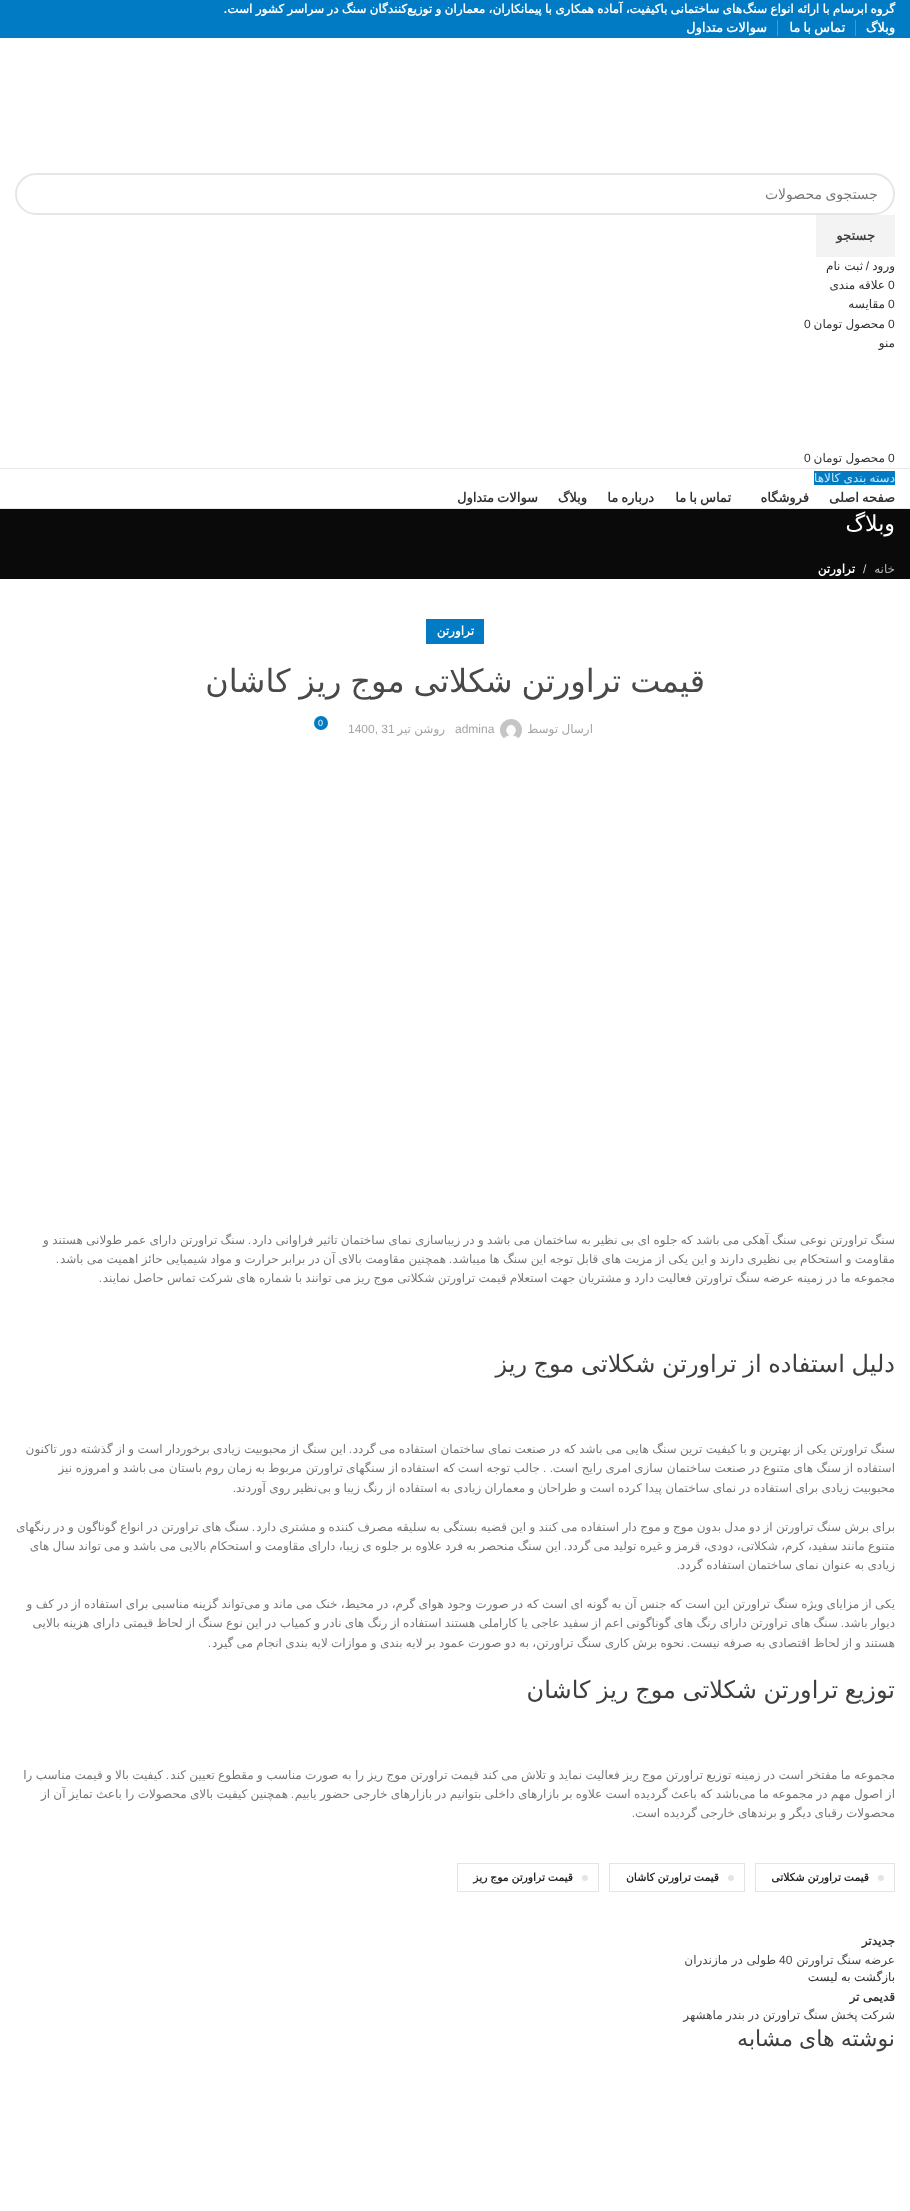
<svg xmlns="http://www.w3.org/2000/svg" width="910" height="2211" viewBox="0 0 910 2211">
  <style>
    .t1 { font: bold 12px DejaVu Sans; direction: rtl; fill: #fff; }
    .t2 { font: bold 12px Liberation Sans; direction: rtl; fill: #fff; }
    .t3 { font: bold 13px DejaVu Sans; direction: rtl; fill: #fff; }
    .t4 { font: 14px DejaVu Sans; direction: rtl; fill: #777; }
    .t5 { font: bold 13px DejaVu Sans; direction: rtl; fill: #3f3f3f; }
    .t6 { font: 12px DejaVu Sans; direction: rtl; fill: #333; }
    .t7 { font: 12px Liberation Sans; direction: rtl; fill: #333; }
    .t8 { font: 12px Liberation Sans; fill: #333; }
    .t9 { font: 12px DejaVu Sans; direction: rtl; fill: #cce5f3; }
    .t10 { font: bold 13px DejaVu Sans; direction: rtl; fill: #333; }
    .t11 { font: 22px DejaVu Sans; direction: rtl; fill: #fff; }
    .t12 { font: 12px DejaVu Sans; direction: rtl; fill: #b6b6b6; }
    .t13 { font: 12px Liberation Sans; fill: #cecece; }
    .t14 { font: 32px DejaVu Sans; direction: rtl; fill: #494949; }
    .t15 { font: 12px DejaVu Sans; direction: rtl; fill: #a5a5a5; }
    .t16 { font: 12px Liberation Sans; fill: #a5a5a5; }
    .t17 { font: 9px Liberation Sans; fill: #fff; }
    .t18 { font: 12px DejaVu Sans; direction: rtl; fill: #777; }
    .t19 { font: 12px Liberation Sans; direction: rtl; fill: #777; }
    .t20 { font: 24px DejaVu Sans; direction: rtl; fill: #3f3f3f; }
    .t21 { font: bold 10.75px DejaVu Sans; direction: rtl; fill: #242424; }
    .t22 { font: bold 12px DejaVu Sans; direction: rtl; fill: #333; }
    .t23 { font: 12px DejaVu Sans; direction: rtl; fill: #494949; }
    .t24 { font: 12px Liberation Sans; fill: #494949; }
    .t25 { font: 22px DejaVu Sans; direction: rtl; fill: #3f3f3f; }
  </style>
  <defs>
    <clipPath id="clip1"><rect x="32" y="186" width="846" height="16"/></clipPath>
  </defs>
  <rect width="100%" height="100%" fill="#fff"/>
  <rect x="0" y="0" width="910" height="38" fill="#007bc4"/>
  <text x="895" y="13" word-spacing="-0.5" class="t1">گروه ابرسام با ارائه انواع سنگ</text>
  <text x="742" y="13" word-spacing="-0.5" class="t1">های ساختمانی باکیفیت، آماده همکاری با پیمانکاران، معماران و توزیع</text>
  <text x="407" y="13" word-spacing="-0.5" class="t1">کنندگان سنگ در سراسر کشور است</text>
  <text x="227" y="13" class="t2">.</text>
  <text x="895" y="32" class="t3">وبلاگ</text>
  <rect x="855" y="20" width="1" height="16" fill="#409cd3"/>
  <text x="845" y="32" word-spacing="-1" class="t3">تماس با ما</text>
  <rect x="777" y="20" width="1" height="16" fill="#409cd3"/>
  <text x="767" y="32" word-spacing="-1" class="t3">سوالات متداول</text>
  <rect x="0" y="468" width="910" height="1" fill="#e8e8e8"/>
  <rect x="16" y="174" width="878" height="40" rx="20" fill="none" stroke="#e6e6e6" stroke-width="2"/>
  <g clip-path="url(#clip1)">
    <text x="878" y="199" word-spacing="-1" class="t4">جستجوی محصولات</text>
  </g>
  <rect x="816" y="215" width="79" height="42" fill="#f3f3f3"/>
  <text x="875" y="240" class="t5">جستجو</text>
  <text x="895" y="270" class="t6">ورود</text>
  <text x="869" y="270" class="t7">/</text>
  <text x="863" y="270" class="t6">ثبت نام</text>
  <text x="888" y="289" class="t8">0</text>
  <text x="885" y="289" word-spacing="-0.5" class="t6">علاقه مندی</text>
  <text x="888" y="308" class="t8">0</text>
  <text x="885" y="308" class="t6">مقایسه</text>
  <text x="888" y="328" class="t8">0</text>
  <text x="885" y="328" class="t6">محصول</text>
  <text x="842" y="328" class="t6">تومان</text>
  <text x="804" y="328" class="t8">0</text>
  <text x="895" y="347" class="t6">منو</text>
  <text x="888" y="462" class="t8">0</text>
  <text x="885" y="462" class="t6">محصول</text>
  <text x="842" y="462" class="t6">تومان</text>
  <text x="804" y="462" class="t8">0</text>
  <rect x="0" y="508" width="910" height="1" fill="#e8e8e8"/>
  <rect x="814" y="471" width="81" height="14" fill="#007bc4"/>
  <text x="895" y="482" word-spacing="-0.5" class="t9">دسته بندی کالاها</text>
  <text x="895" y="502" word-spacing="-1" class="t10">صفحه اصلی</text>
  <text x="809" y="502" class="t10">فروشگاه</text>
  <text x="731" y="502" word-spacing="-1" class="t10">تماس با ما</text>
  <text x="654" y="502" word-spacing="-1" class="t10">درباره ما</text>
  <text x="587" y="502" class="t10">وبلاگ</text>
  <text x="538" y="502" word-spacing="-1" class="t10">سوالات متداول</text>
  <rect x="0" y="509" width="910" height="70" fill="#0a0a0a"/>
  <text x="895" y="531" class="t11">وبلاگ</text>
  <text x="895" y="573" class="t12">خانه</text>
  <text x="863" y="573" class="t13">/</text>
  <text x="855" y="573" class="t1">تراورتن</text>
  <rect x="426" y="619" width="58" height="25" fill="#007bc4"/>
  <text x="474" y="635" class="t1">تراورتن</text>
  <text x="705" y="692" word-spacing="-1.25" class="t14">قیمت تراورتن شکلاتی موج ریز کاشان</text>
  <text x="593" y="733" word-spacing="-0.5" class="t15">ارسال توسط</text>
  <image x="500" y="719" width="22" height="20" href="images/1.png"/>
  <text x="455" y="733" class="t16">admina</text>
  <text x="445" y="733" word-spacing="-0.5" class="t15">روشن تیر</text>
  <text x="348" y="733" class="t16">1400, 31</text>
  <circle cx="321" cy="723" r="7" fill="#007bc4"/>
  <text x="318" y="726" class="t17">0</text>
  <text x="895" y="1244" word-spacing="-0.5" class="t18">سنگ تراورتن نوعی سنگ آهکی می باشد که جلوه ای بی نظیر به ساختمان می باشد و در زیباسازی نمای ساختمان تاثیر فراوانی دارد</text>
  <text x="251" y="1244" class="t19">.</text>
  <text x="245" y="1244" word-spacing="-0.5" class="t18">سنگ تراورتن دارای عمر طولانی هستند و</text>
  <text x="895" y="1263" word-spacing="-0.5" class="t18">مقاومت و استحکام بی نظیری دارند و این یکی از مزیت های قابل توجه این سنگ ها میباشد</text>
  <text x="452" y="1263" class="t19">.</text>
  <text x="446" y="1263" word-spacing="-0.5" class="t18">همچنین مقاومت بالای آن در برابر حرارت و مواد شیمیایی حائز اهمیت می باشد</text>
  <text x="59" y="1263" class="t19">.</text>
  <text x="895" y="1282" word-spacing="-0.5" class="t18">مجموعه ما در زمینه عرضه سنگ تراورتن فعالیت دارد و مشتریان جهت استعلام قیمت تراورتن شکلاتی موج ریز می توانند با شماره های شرکت تماس حاصل نمایند</text>
  <text x="102" y="1282" class="t19">.</text>
  <text x="895" y="1372" word-spacing="-1" class="t20">دلیل استفاده از تراورتن شکلاتی موج ریز</text>
  <text x="895" y="1453" word-spacing="-0.5" class="t18">سنگ تراورتن یکی از بهترین و با کیفیت ترین سنگ هایی می باشد که در صنعت نمای ساختمان استفاده می گردد</text>
  <text x="352" y="1453" class="t19">.</text>
  <text x="346" y="1453" word-spacing="-0.5" class="t18">این سنگ از محبوبیت زیادی برخوردار است و از گذشته دور تاکنون</text>
  <text x="895" y="1472" class="t18">استفاده</text>
  <text x="853" y="1472" class="t18">از</text>
  <text x="841" y="1472" class="t18">سنگ</text>
  <text x="813" y="1472" class="t18">های</text>
  <text x="790" y="1472" class="t18">متنوع</text>
  <text x="760" y="1472" class="t18">در</text>
  <text x="746" y="1472" class="t18">صنعت</text>
  <text x="711" y="1472" class="t18">ساختمان</text>
  <text x="663" y="1472" class="t18">سازی</text>
  <text x="631" y="1472" class="t18">امری</text>
  <text x="602" y="1472" class="t18">رایج</text>
  <text x="578" y="1472" class="t18">است</text>
  <text x="553" y="1472" class="t19">. .</text>
  <text x="540" y="1472" class="t18">جالب</text>
  <text x="510" y="1472" class="t18">توجه</text>
  <text x="483" y="1472" class="t18">است</text>
  <text x="455" y="1472" class="t18">که</text>
  <text x="439" y="1472" class="t18">استفاده</text>
  <text x="398" y="1472" class="t18">از</text>
  <text x="385" y="1472" class="t18">سنگهای</text>
  <text x="343" y="1472" class="t18">تراورتن</text>
  <text x="302" y="1472" class="t18">مربوط</text>
  <text x="265" y="1472" class="t18">به</text>
  <text x="252" y="1472" class="t18">زمان</text>
  <text x="224" y="1472" class="t18">روم</text>
  <text x="202" y="1472" class="t18">باستان</text>
  <text x="165" y="1472" class="t18">می</text>
  <text x="146" y="1472" class="t18">باشد</text>
  <text x="119" y="1472" class="t18">و</text>
  <text x="110" y="1472" class="t18">امروزه</text>
  <text x="72" y="1472" class="t18">نیز</text>
  <text x="895" y="1492" word-spacing="-0.5" class="t18">محبوبیت زیادی برای استفاده در نمای ساختمان پیدا کرده است و طراحان و معماران زیادی به استفاده از رنگ زیبا و بی</text>
  <text x="317" y="1492" word-spacing="-0.5" class="t18">نظیر روی آوردند</text>
  <text x="236" y="1492" class="t19">.</text>
  <text x="895" y="1531" word-spacing="-0.5" class="t18">برای برش سنگ تراورتن از دو مدل بدون موج و موج دار استفاده می کنند و این قضیه بستگی به سلیقه مصرف کننده و مشتری دارد</text>
  <text x="255" y="1531" class="t19">.</text>
  <text x="249" y="1531" word-spacing="-0.5" class="t18">سنگ های تراورتن در انواع گوناگون و در رنگهای</text>
  <text x="895" y="1550" word-spacing="-0.5" class="t18">متنوع مانند سفید، کرم، شکلاتی، دودی، قرمز و غیره تولید می گردد</text>
  <text x="567" y="1550" class="t19">.</text>
  <text x="561" y="1550" word-spacing="-0.5" class="t18">این سنگ منحصر به فرد علاوه بر جلوه ی زیبا، دارای مقاومت و استحکام بالایی می باشد و می تواند سال های</text>
  <text x="895" y="1569" word-spacing="-0.5" class="t18">زیادی به عنوان نمای ساختمان استفاده گردد</text>
  <text x="680" y="1569" class="t19">.</text>
  <text x="895" y="1608" word-spacing="-0.5" class="t18">یکی از مزایای ویژه سنگ تراورتن این است که جنس آن به گونه ای است که در صورت وجود هوای گرم، در محیط، خنک می ماند و می</text>
  <text x="244" y="1608" word-spacing="-0.5" class="t18">تواند گزینه مناسبی برای استفاده از در کف و</text>
  <text x="895" y="1627" word-spacing="-0.5" class="t18">دیوار باشد</text>
  <text x="844" y="1627" class="t19">.</text>
  <text x="838" y="1627" word-spacing="-0.5" class="t18">سنگ های تراورتن دارای رنگ های گوناگونی اعم از سفید عاجی یا کاراملی هستند استفاده از رنگ های نادر و کمیاب در این نوع سنگ از لحاظ قیمتی دارای هزینه بالایی</text>
  <text x="895" y="1647" word-spacing="-0.5" class="t18">هستند و از لحاظ اقتصادی به صرفه نیست</text>
  <text x="690" y="1647" class="t19">.</text>
  <text x="684" y="1647" word-spacing="-0.5" class="t18">نحوه برش کاری سنگ تراورتن، به دو صورت عمود بر لایه بندی و موازات لایه بندی انجام می گیرد</text>
  <text x="211" y="1647" class="t19">.</text>
  <text x="895" y="1698" word-spacing="-1" class="t20">توزیع تراورتن شکلاتی موج ریز کاشان</text>
  <text x="895" y="1779" word-spacing="-0.5" class="t18">مجموعه ما مفتخر است در زمینه توزیع تراورتن موج ریز فعالیت نماید و تلاش می کند قیمت تراورتن موج ریز را به صورت مناسب و مقطوع تعیین کند</text>
  <text x="169" y="1779" class="t19">.</text>
  <text x="163" y="1779" word-spacing="-0.5" class="t18">کیفیت بالا و قیمت مناسب را</text>
  <text x="895" y="1798" word-spacing="-0.5" class="t18">از اصول مهم در مجموعه ما می</text>
  <text x="739" y="1798" word-spacing="-0.5" class="t18">باشد که باعث گردیده است علاوه بر بازارهای داخلی بتوانیم در بازارهای خارجی حضور یابیم</text>
  <text x="294" y="1798" class="t19">.</text>
  <text x="288" y="1798" word-spacing="-0.5" class="t18">همچنین کیفیت بالای محصولات را باعث تمایز آن از</text>
  <text x="895" y="1817" word-spacing="-0.5" class="t18">محصولات رقبای دیگر و برندهای خارجی گردیده است</text>
  <text x="635" y="1817" class="t19">‌.</text>
  <rect x="755.5" y="1863.5" width="139" height="28" fill="none" stroke="#e4e4e4"/>
  <circle cx="881" cy="1878" r="3" fill="#e4e4e4"/>
  <text x="869" y="1881" word-spacing="-0.5" class="t21">قیمت تراورتن شکلاتی</text>
  <rect x="609.5" y="1863.5" width="135" height="28" fill="none" stroke="#e4e4e4"/>
  <circle cx="731" cy="1878" r="3" fill="#e4e4e4"/>
  <text x="719" y="1881" word-spacing="-0.5" class="t21">قیمت تراورتن کاشان</text>
  <rect x="457.5" y="1863.5" width="141" height="28" fill="none" stroke="#e4e4e4"/>
  <circle cx="585" cy="1878" r="3" fill="#e4e4e4"/>
  <text x="573" y="1881" word-spacing="-0.5" class="t21">قیمت تراورتن موج ریز</text>
  <text x="895" y="1945" class="t22">جدیدتر</text>
  <text x="895" y="1964" word-spacing="-0.5" class="t23">عرضه سنگ تراورتن</text>
  <text x="779" y="1964" class="t24">40</text>
  <text x="776" y="1964" class="t23">طولی در مازندران</text>
  <text x="895" y="1981" word-spacing="-0.5" class="t6">بازگشت به لیست</text>
  <text x="895" y="2001" word-spacing="-0.5" class="t22">قدیمی تر</text>
  <text x="895" y="2019" word-spacing="-0.5" class="t23">شرکت پخش سنگ تراورتن در بندر ماهشهر</text>
  <text x="895" y="2046" word-spacing="-1" class="t25">نوشته های مشابه</text>
</svg>
